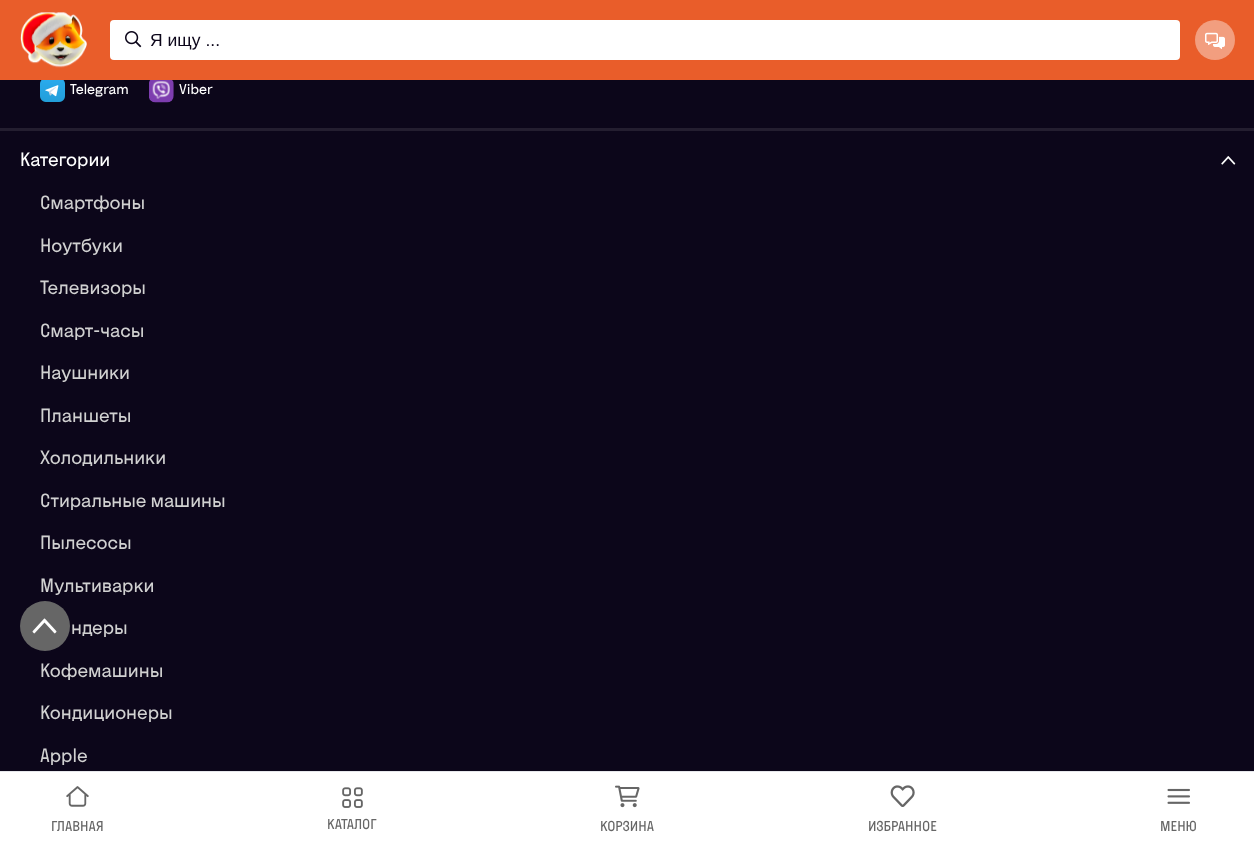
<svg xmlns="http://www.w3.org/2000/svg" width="1254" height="842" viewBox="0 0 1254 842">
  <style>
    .t1 { font: 17.5px Liberation Sans; fill: #0c061a; }
    .t2 { font: 15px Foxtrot; fill: #fff; }
    .t3 { font: 20px Foxtrot; fill: #fff; }
    .t4 { font: 20px Foxtrot; fill: #d1d1d1; }
    .t5 { font: 15px Foxtrot; fill: #666; }
  </style>
  <rect width="100%" height="100%" fill="#0c061a"/>
  <rect x="0" y="0" width="1254" height="80" fill="#e95d2a"/>
  <image x="20" y="12" width="67" height="56" href="images/1.png"/>
  <rect x="110" y="20" width="1070" height="40" rx="4" fill="#fff"/>
  <image x="125" y="31" width="17" height="17" href="images/2.png"/>
  <text x="150" y="46" class="t1">Я ищу ...</text>
  <circle cx="1215" cy="40" r="20" fill="#f29e7f"/>
  <image x="1205" y="32" width="20" height="17" href="images/3.png"/>
  <rect x="0" y="128" width="1254" height="3" fill="#241e30"/>
  <image x="40" y="80" width="25" height="22" href="images/4.png"/>
  <text x="70" y="94" class="t2">Telegram</text>
  <image x="149" y="80" width="25" height="23" href="images/5.png"/>
  <text x="179" y="94" class="t2">Viber</text>
  <text x="20" y="166" class="t3">Категории</text>
  <image x="1221" y="156" width="15" height="9" href="images/6.png"/>
  <text x="40" y="209" class="t4">Смартфоны</text>
  <text x="40" y="252" class="t4">Ноутбуки</text>
  <text x="40" y="294" class="t4">Телевизоры</text>
  <text x="40" y="337" class="t4">Смарт-часы</text>
  <text x="40" y="379" class="t4">Наушники</text>
  <text x="40" y="422" class="t4">Планшеты</text>
  <text x="40" y="464" class="t4">Холодильники</text>
  <text x="40" y="507" class="t4">Стиральные машины</text>
  <text x="40" y="549" class="t4">Пылесосы</text>
  <text x="40" y="592" class="t4">Мультиварки</text>
  <text x="71" y="634" class="t4">ндеры</text>
  <text x="40" y="677" class="t4">Кофемашины</text>
  <text x="40" y="719" class="t4">Кондиционеры</text>
  <text x="40" y="762" class="t4">Apple</text>
  <rect x="0" y="772" width="1254" height="70" fill="#fff"/>
  <rect x="0" y="771" width="1254" height="1" fill="#e6e7eb"/>
  <image x="66" y="786" width="23" height="21" href="images/7.png"/>
  <text x="51" y="831" class="t5">ГЛАВНАЯ</text>
  <image x="342" y="787" width="21" height="21" href="images/8.png"/>
  <text x="327" y="829" class="t5">КАТАЛОГ</text>
  <image x="615" y="785" width="25" height="23" href="images/9.png"/>
  <text x="600" y="831" class="t5">КОРЗИНА</text>
  <image x="890" y="785" width="25" height="22" href="images/10.png"/>
  <text x="868" y="831" class="t5">ИЗБРАННОЕ</text>
  <image x="1167" y="788" width="23" height="16" href="images/11.png"/>
  <text x="1160" y="831" class="t5">МЕНЮ</text>
  <circle cx="45" cy="626" r="25" fill="#666"/>
  <image x="32" y="618" width="25" height="16" href="images/12.png"/>
</svg>
